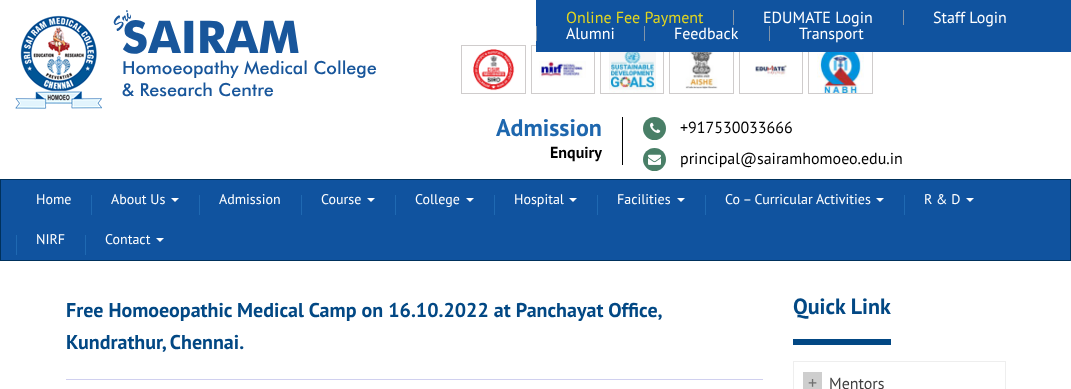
<svg xmlns="http://www.w3.org/2000/svg" width="1071" height="389" viewBox="0 0 1071 389">
  <style>
    .t1 { font: bold 45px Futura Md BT; fill: #18569b; }
    .t2 { font: italic 18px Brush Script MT; fill: #18569b; }
    .t3 { font: 500 18px Futura Md BT; fill: #18569b; }
    .t4 { font: bold 24px PT Sans; fill: #1e67ae; }
    .t5 { font: bold 16px PT Sans; fill: #000; }
    .t6 { font: 16px PT Sans; fill: #000; }
    .t7 { font: 16px PT Sans; fill: #e1d520; }
    .t8 { font: 16px PT Sans; fill: #fff; }
    .t9 { font: 14px PT Sans; fill: #fff; }
    .t10 { font: bold 20px PT Sans; fill: #024884; }
    .t11 { font: bold 22px PT Sans; fill: #024884; }
    .t12 { font: 18px PT Sans; fill: #6f6f6f; }
    .t13 { font: 16px PT Sans; fill: #404040; }
  </style>
  <rect width="100%" height="100%" fill="#fff"/>
  <image x="15" y="15" width="87" height="94" href="images/1.png"/>
  <text x="122" y="53" class="t1">SAIRAM</text>
  <text x="117" y="31" transform="rotate(-43 117 31)" class="t2">Sri</text>
  <text x="122" y="74" class="t3">Homoeopathy Medical College</text>
  <text x="122" y="96" class="t3">&amp; Research Centre</text>
  <rect x="461.5" y="45.5" width="64" height="48" fill="none" stroke="#cfcccc"/>
  <image x="473" y="49" width="42" height="42" href="images/2.png"/>
  <rect x="531.5" y="45.5" width="63" height="48" fill="none" stroke="#cfcccc"/>
  <image x="539" y="61" width="47" height="17" href="images/3.png"/>
  <rect x="600.5" y="45.5" width="63" height="48" fill="none" stroke="#cfcccc"/>
  <image x="609" y="52" width="47" height="41" href="images/4.png"/>
  <rect x="669.5" y="45.5" width="64" height="48" fill="none" stroke="#cfcccc"/>
  <image x="685" y="52" width="33" height="37" href="images/5.png"/>
  <rect x="739.5" y="45.5" width="63" height="48" fill="none" stroke="#cfcccc"/>
  <image x="755" y="62" width="32" height="15" href="images/6.png"/>
  <rect x="808.5" y="45.5" width="64" height="48" fill="none" stroke="#cfcccc"/>
  <image x="817" y="52" width="47" height="41" href="images/7.png"/>
  <rect x="622" y="117" width="1" height="48" fill="#000"/>
  <text x="496" y="136" class="t4">Admission</text>
  <text x="550" y="158" class="t5">Enquiry</text>
  <circle cx="654.5" cy="128.5" r="11.5" fill="#497f67"/>
  <image x="650" y="122" width="11" height="11" href="images/8.png"/>
  <text x="680" y="133" class="t6">+917530033666</text>
  <circle cx="654.5" cy="159.5" r="11.5" fill="#497f67"/>
  <image x="648" y="154" width="13" height="11" href="images/9.png"/>
  <text x="680" y="164" class="t6">principal@sairamhomoeo.edu.in</text>
  <rect x="536" y="0" width="535" height="52" fill="#10539f"/>
  <text x="566" y="23" class="t7">Online Fee Payment</text>
  <rect x="733" y="10" width="1" height="15" fill="#8094aa"/>
  <text x="763" y="23" class="t8">EDUMATE Login</text>
  <rect x="903" y="10" width="1" height="15" fill="#8094aa"/>
  <text x="933" y="23" class="t8">Staff Login</text>
  <rect x="536" y="26" width="1" height="15" fill="#8094aa"/>
  <text x="566" y="39" class="t8">Alumni</text>
  <rect x="644" y="26" width="1" height="15" fill="#8094aa"/>
  <text x="674" y="39" class="t8">Feedback</text>
  <rect x="769" y="26" width="1" height="15" fill="#8094aa"/>
  <text x="799" y="39" class="t8">Transport</text>
  <rect x="0.5" y="179.5" width="1070" height="81" fill="#10539f" stroke="#00315c"/>
  <text x="36" y="204" class="t9">Home</text>
  <rect x="91" y="195" width="1" height="20" fill="#1f69b2"/>
  <text x="111" y="204" class="t9">About Us</text>
  <path d="M171 198H179L175 202Z" fill="#fff"/>
  <rect x="199" y="195" width="1" height="20" fill="#1f69b2"/>
  <text x="219" y="204" class="t9">Admission</text>
  <rect x="301" y="195" width="1" height="20" fill="#1f69b2"/>
  <text x="321" y="204" class="t9">Course</text>
  <path d="M367 198H375L371 202Z" fill="#fff"/>
  <rect x="395" y="195" width="1" height="20" fill="#1f69b2"/>
  <text x="415" y="204" class="t9">College</text>
  <path d="M466 198H474L470 202Z" fill="#fff"/>
  <rect x="494" y="195" width="1" height="20" fill="#1f69b2"/>
  <text x="514" y="204" class="t9">Hospital</text>
  <path d="M569 198H577L573 202Z" fill="#fff"/>
  <rect x="597" y="195" width="1" height="20" fill="#1f69b2"/>
  <text x="617" y="204" class="t9">Facilities</text>
  <path d="M677 198H685L681 202Z" fill="#fff"/>
  <rect x="705" y="195" width="1" height="20" fill="#1f69b2"/>
  <text x="725" y="204" class="t9">Co – Curricular Activities</text>
  <path d="M876 198H884L880 202Z" fill="#fff"/>
  <rect x="904" y="195" width="1" height="20" fill="#1f69b2"/>
  <text x="924" y="204" class="t9">R &amp; D</text>
  <path d="M966 198H974L970 202Z" fill="#fff"/>
  <rect x="16" y="235" width="1" height="20" fill="#1f69b2"/>
  <text x="36" y="244" class="t9">NIRF</text>
  <rect x="85" y="235" width="1" height="20" fill="#1f69b2"/>
  <text x="105" y="244" class="t9">Contact</text>
  <path d="M156 238H164L160 242Z" fill="#fff"/>
  <rect x="66" y="379" width="697" height="1" fill="#d0d0ef"/>
  <text x="66" y="317" class="t10">Free Homoeopathic Medical Camp on 16.10.2022 at Panchayat Office,</text>
  <text x="66" y="349" class="t10">Kundrathur, Chennai.</text>
  <rect x="793" y="339" width="98" height="6" fill="#024884"/>
  <text x="793" y="314" class="t11">Quick Link</text>
  <rect x="793.5" y="361.5" width="212" height="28" fill="none" stroke="#eee"/>
  <rect x="803" y="372" width="19" height="17" fill="#cecece"/>
  <text x="808" y="389" class="t12">+</text>
  <text x="829" y="389" class="t13">Mentors</text>
</svg>
